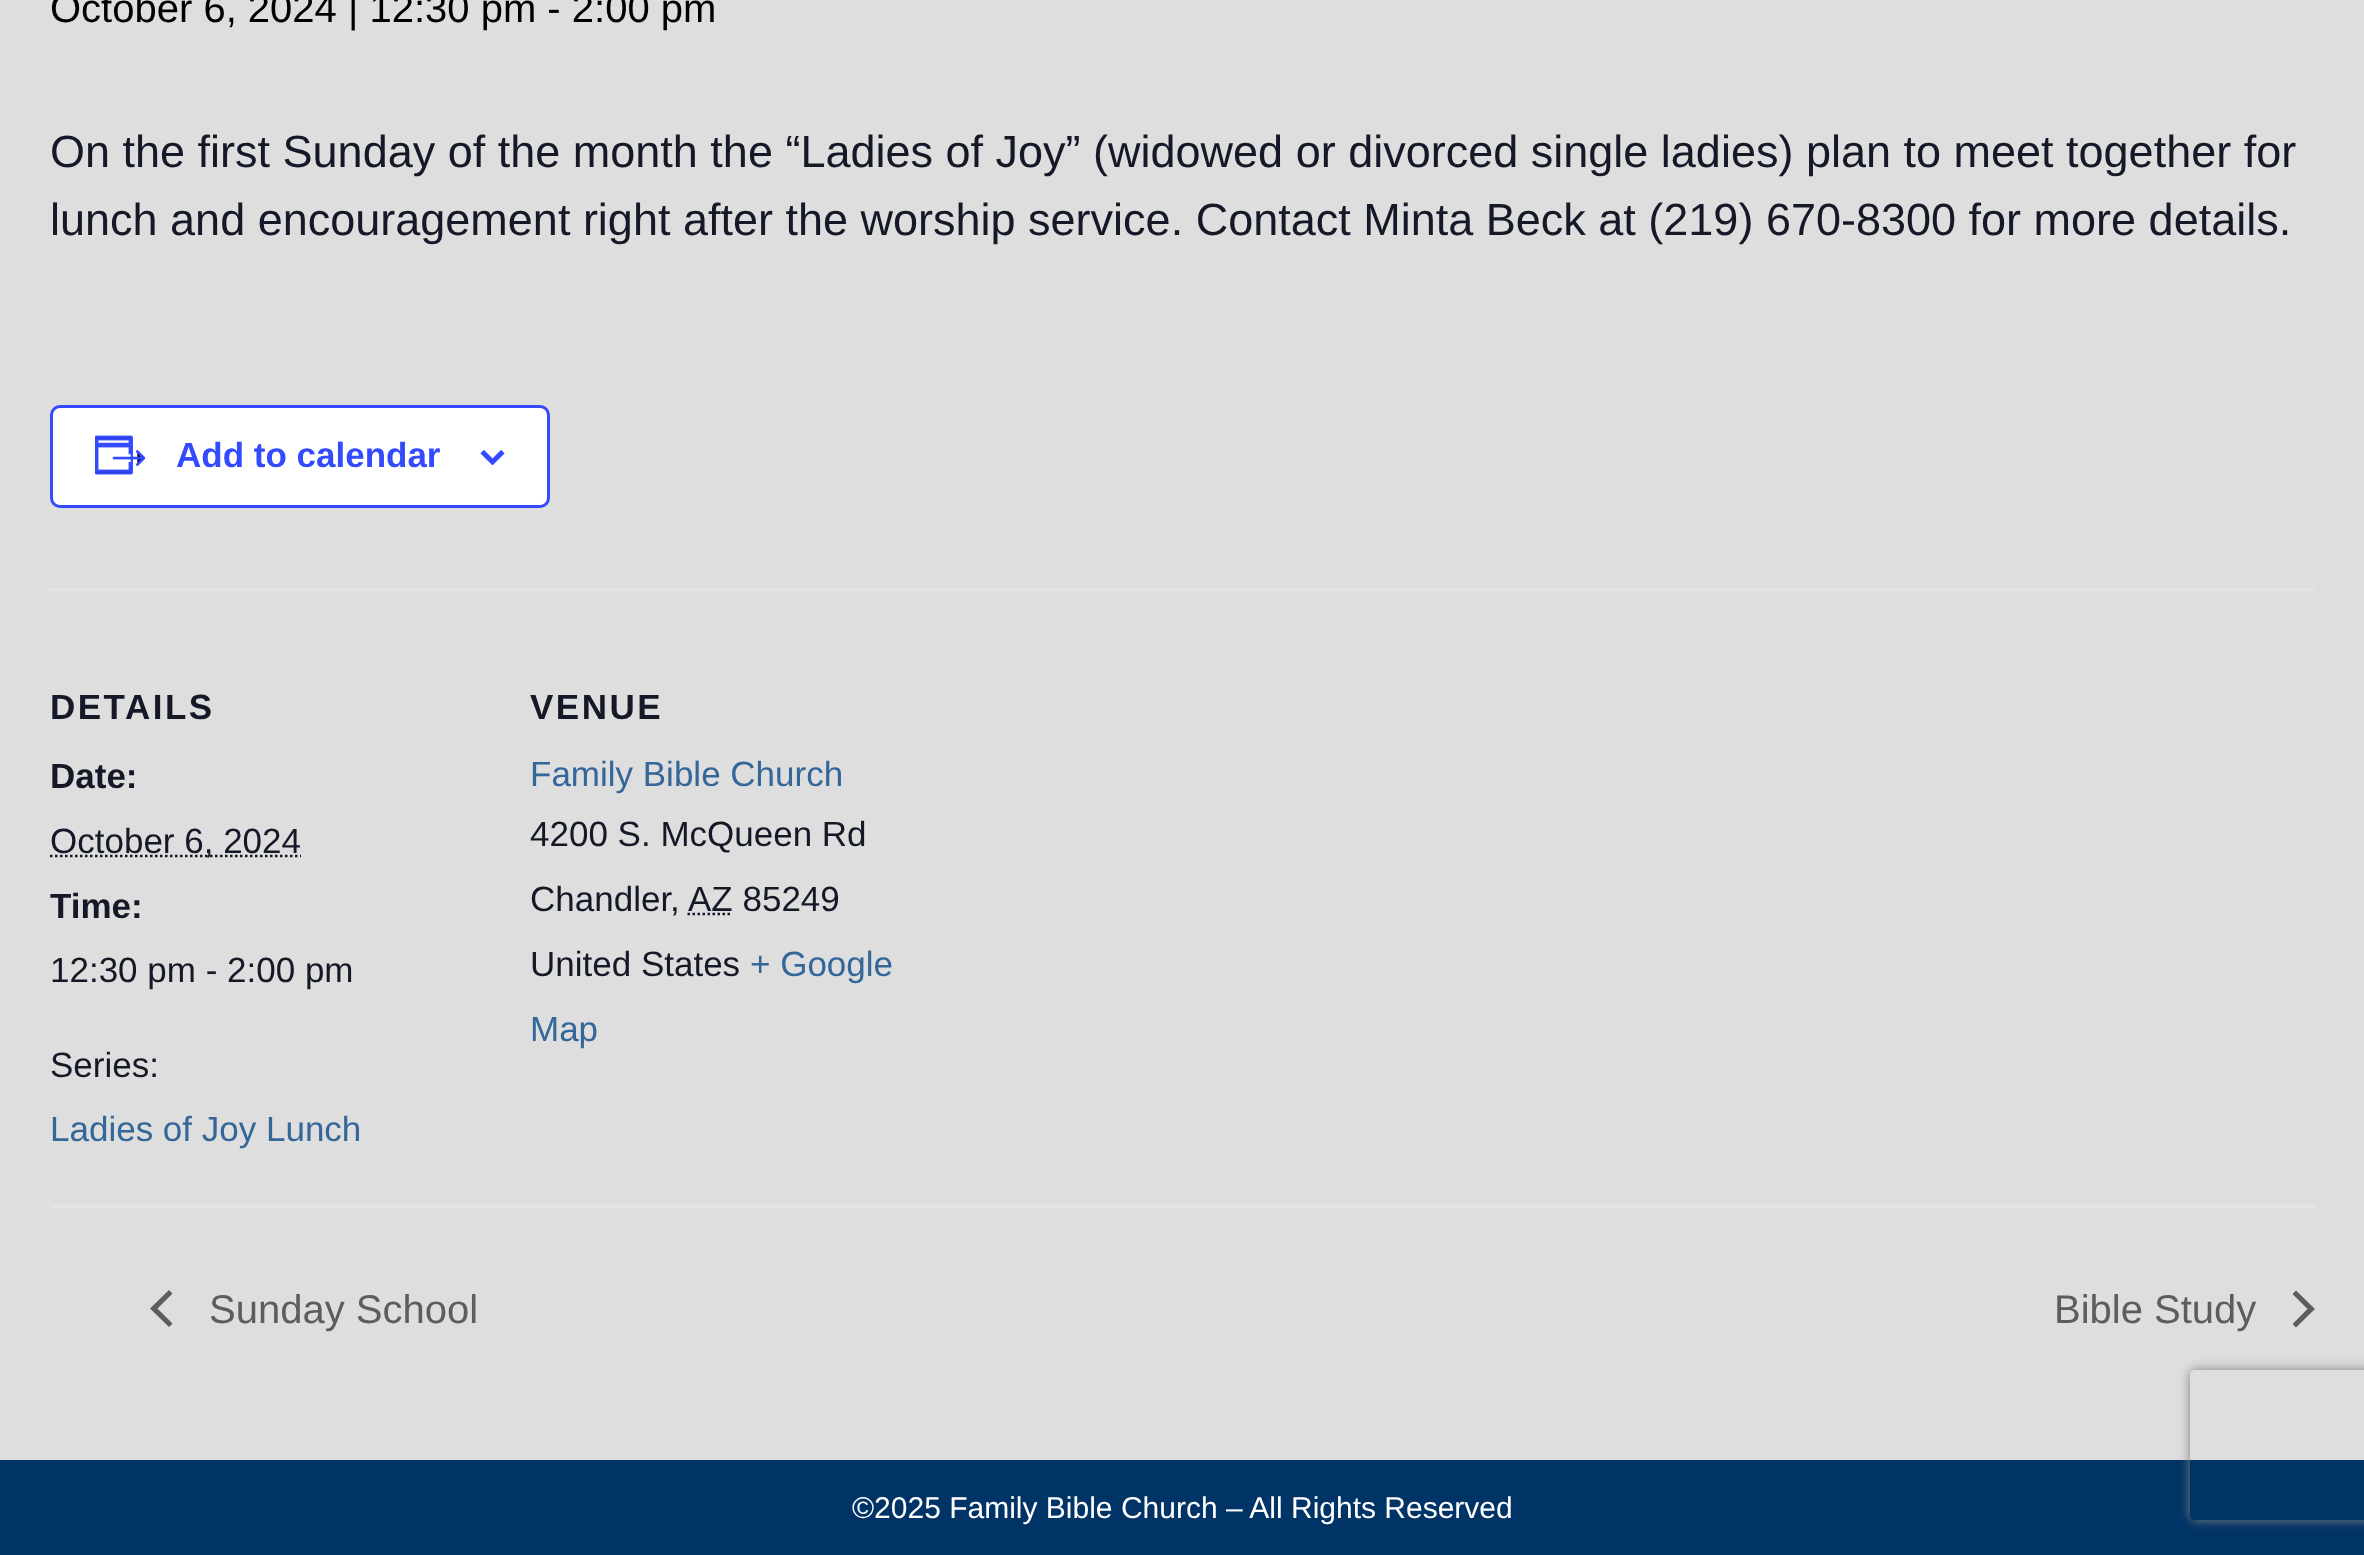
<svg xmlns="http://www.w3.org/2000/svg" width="2364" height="1555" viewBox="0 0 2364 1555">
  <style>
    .t1 { font: 40px Liberation Sans; fill: #000; }
    .t2 { font: 45px Liberation Sans; fill: #141827; }
    .t3 { font: bold 35px Liberation Sans; fill: #334aff; }
    .t4 { font: bold 35px Liberation Sans; letter-spacing: 2.5px; fill: #141827; }
    .t5 { font: bold 35px Liberation Sans; fill: #141827; }
    .t6 { font: 35px Liberation Sans; fill: #141827; }
    .t7 { font: 35px Liberation Sans; fill: #369; }
    .t8 { font: 40px Liberation Sans; fill: #5d5d5d; }
    .t9 { font: 30px Liberation Sans; fill: #fff; }
  </style>
  <defs>
    <clipPath id="clip1"><rect x="2293" y="1290" width="22" height="38"/></clipPath>
    <clipPath id="clip2"><path d="M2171 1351H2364V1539H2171ZM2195 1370H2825C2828 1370 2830 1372 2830 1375V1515C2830 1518 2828 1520 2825 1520H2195C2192 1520 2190 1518 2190 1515V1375C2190 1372 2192 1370 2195 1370Z" clip-rule="evenodd"/></clipPath>
  </defs>
  <rect width="100%" height="100%" fill="#dedede"/>
  <text x="50" y="22" class="t1">October 6, 2024 | 12:30 pm - 2:00 pm</text>
  <text x="50" y="167" class="t2">On the first Sunday of the month the “Ladies of Joy” (widowed or divorced single ladies) plan to meet together for</text>
  <text x="50" y="235" class="t2">lunch and encouragement right after the worship service. Contact Minta Beck at (219) 670-8300 for more details.</text>
  <rect x="51.5" y="406.5" width="497" height="100" rx="8.5" fill="#fff" stroke="#334aff" stroke-width="3"/>
  <image x="95" y="435" width="51" height="40" href="images/1.png"/>
  <text x="176" y="467" class="t3">Add to calendar</text>
  <image x="480" y="450" width="25" height="15" href="images/2.png"/>
  <rect x="50" y="588" width="2265" height="3" fill="#e4e4e4"/>
  <text x="50" y="719" class="t4">DETAILS</text>
  <text x="50" y="788" class="t5">Date:</text>
  <path d="M50 856H301" fill="none" stroke="#141827" stroke-width="2.5" stroke-dasharray="2.5 2.5"/>
  <text x="50" y="853" class="t6">October 6, 2024</text>
  <text x="50" y="918" class="t5">Time:</text>
  <text x="50" y="982" class="t6">12:30 pm - 2:00 pm</text>
  <text x="50" y="1077" class="t6">Series:</text>
  <text x="50" y="1141" class="t7">Ladies of Joy Lunch</text>
  <text x="530" y="719" class="t4">VENUE</text>
  <text x="530" y="786" class="t7">Family Bible Church</text>
  <text x="530" y="846" class="t6">4200 S. McQueen Rd</text>
  <text x="530" y="911" class="t6">Chandler</text>
  <text x="670" y="911" class="t6">,</text>
  <path d="M687.5 914H732.5" fill="none" stroke="#141827" stroke-width="2.5" stroke-dasharray="2.5 2.5"/>
  <text x="688" y="911" class="t6">AZ 85249</text>
  <text x="530" y="976" class="t6">United States</text>
  <text x="750" y="976" class="t7">+ Google</text>
  <text x="530" y="1041" class="t7">Map</text>
  <rect x="50" y="1205" width="2265" height="3" fill="#e4e4e4"/>
  <path d="M172.5 1323.5L169 1327L150 1308.5L169 1290L172.5 1293.5L157.5 1308.5Z" fill="#5d5d5d"/>
  <text x="209" y="1323" class="t8">Sunday School</text>
  <text x="2054" y="1323" class="t8">Bible Study</text>
  <g clip-path="url(#clip1)">
    <path d="M2292.5 1294L2296 1290.5L2315 1309L2296 1327.5L2292.5 1324L2307.5 1309Z" fill="#5d5d5d"/>
  </g>
  <rect x="0" y="1460" width="2364" height="95" fill="#036"/>
  <text x="852" y="1518" class="t9">©2025 Family Bible Church – All Rights Reserved</text>
  <g clip-path="url(#clip2)">
    <rect x="2190" y="1370" width="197" height="150" rx="5" fill="#808080" filter="blur(6px)"/>
  </g>
</svg>
